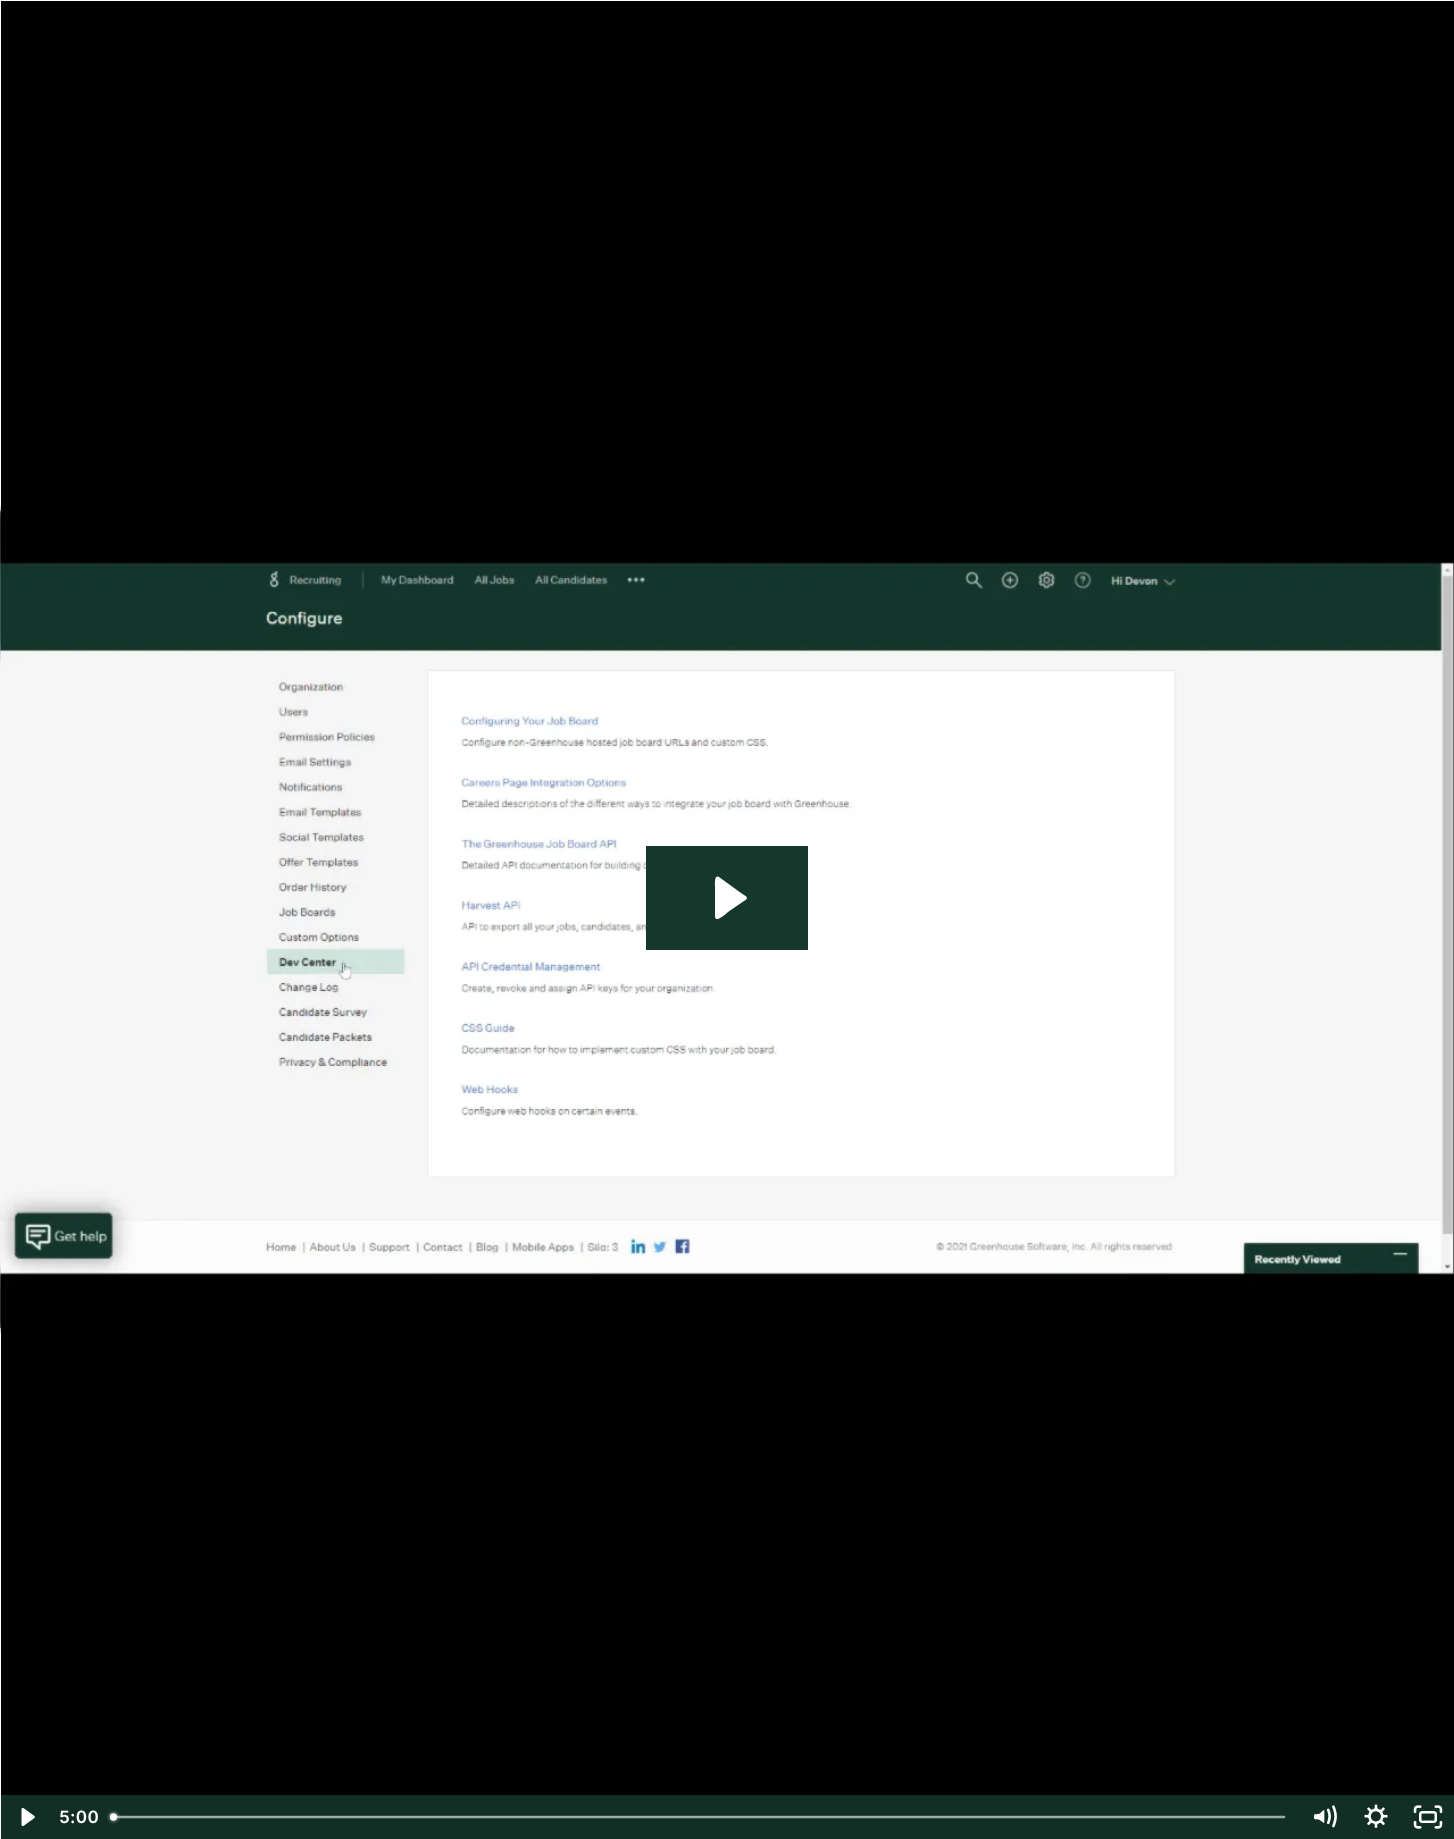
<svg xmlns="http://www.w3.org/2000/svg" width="1454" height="1839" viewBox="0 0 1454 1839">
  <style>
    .t1 { font: 600 17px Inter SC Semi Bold; letter-spacing: 0.5px; fill: #fff; }
  </style>
  <rect width="100%" height="100%" fill="#fff"/>
  <image x="0" y="504" width="1" height="831" href="images/1.png"/>
  <rect x="1" y="1" width="1453" height="1794" fill="#000"/>
  <image x="0" y="506" width="1" height="827" href="images/3.png"/>
  <image x="0" y="511" width="1454" height="817" href="images/2.png"/>
  <rect x="646" y="846" width="162" height="104" fill="#15372c"/>
  <path d="M719 877C714 874 715 885 715 886V917L716 919C719 920 726 914 728 912L741 903C749 898 749 898 741 893Z" fill="#fff" fill-rule="evenodd"/>
  <rect x="1" y="1795" width="1453" height="44" fill="#122f25"/>
  <image x="21" y="1807" width="14" height="20" href="images/4.png"/>
  <text x="59" y="1823" class="t1">5:00</text>
  <image x="107" y="1810" width="1179" height="14" href="images/5.png"/>
  <image x="1313" y="1805" width="24" height="23" href="images/6.png"/>
  <image x="1364" y="1804" width="24" height="24" href="images/7.png"/>
  <image x="1413" y="1805" width="30" height="24" href="images/8.png"/>
</svg>
